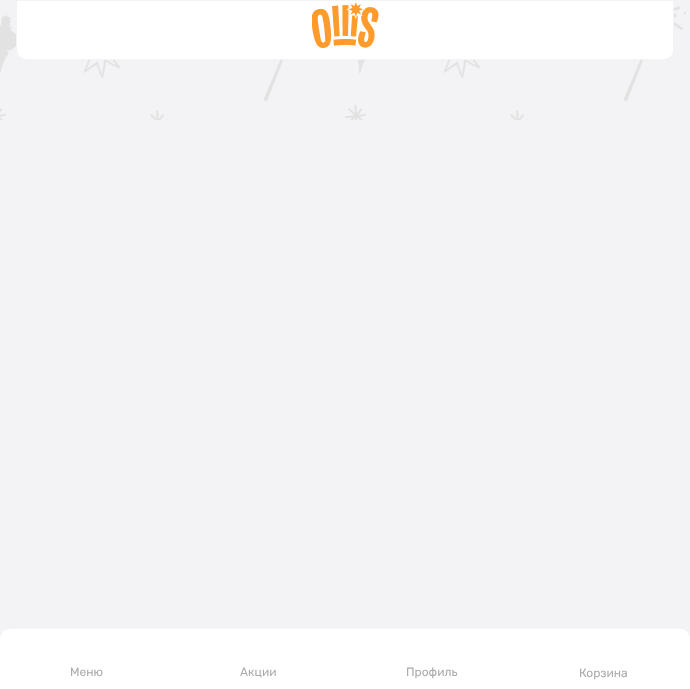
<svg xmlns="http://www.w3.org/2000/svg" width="690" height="689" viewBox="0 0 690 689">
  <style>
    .t1 { font: 12px Rubik; fill: #aaa; }
  </style>
  <rect width="100%" height="100%" fill="#f3f3f5"/>
  <image x="0" y="6" width="686" height="114" href="images/1.png"/>
  <path d="M16.5 .5H673.5V50C673.5 55 669 59.5 664 59.5H26C21 59.5 16.5 55 16.5 50Z" fill="#fff" stroke="#f3f3f5"/>
  <image x="312" y="2" width="67" height="46" href="images/2.png"/>
  <path d="M10 629H680C685.5 629 690 633.5 690 639V689H0V639C0 633.5 4.5 629 10 629Z" fill="#fff"/>
  <text x="70" y="676" class="t1">Меню</text>
  <text x="240" y="676" class="t1">Акции</text>
  <text x="406" y="676" class="t1">Профиль</text>
  <text x="579" y="677" class="t1">Корзина</text>
</svg>
